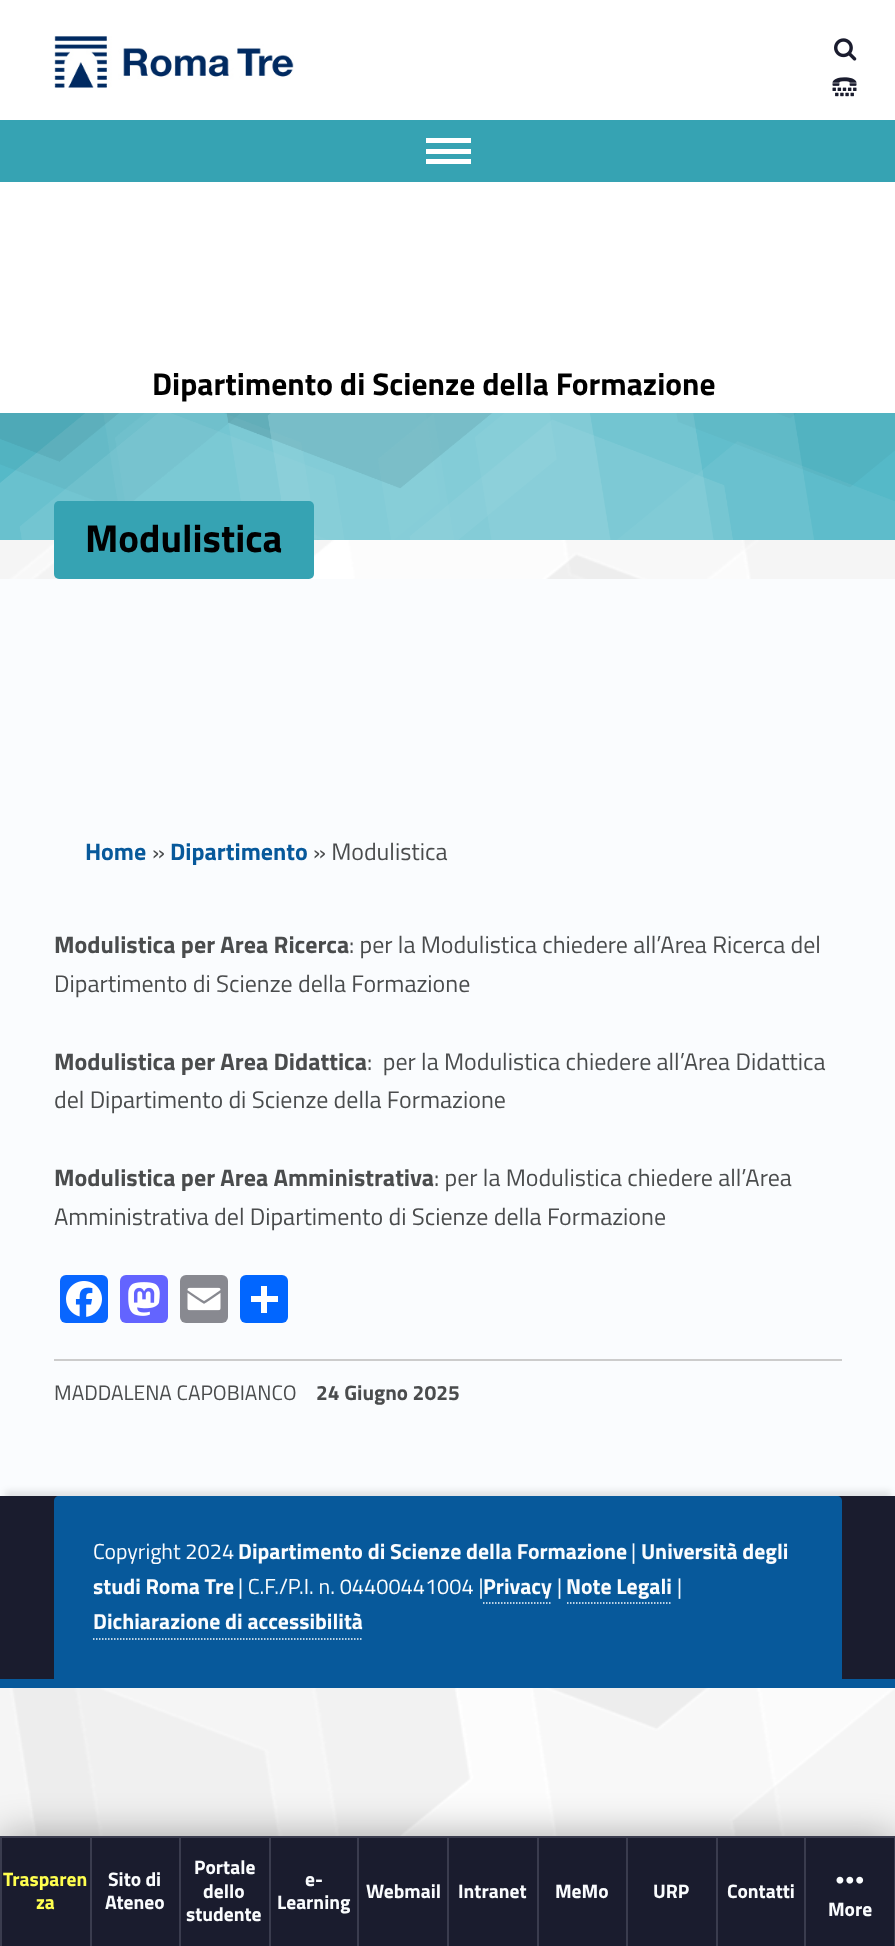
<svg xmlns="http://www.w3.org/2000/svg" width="895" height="1946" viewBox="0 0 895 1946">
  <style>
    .t1 { font: bold 31.5px Titillium Web; fill: #000; }
    .t2 { font: bold 19.5px Titillium Web; fill: #ffff4f; }
    .t3 { font: bold 19.5px Titillium Web; fill: #fafcfe; }
    .t4 { font: bold 39px Titillium Web; fill: #000; }
    .t5 { font: bold 24px Titillium Web; fill: #07599b; }
    .t6 { font: 24px Titillium Web; fill: #4a4c4d; }
    .t7 { font: bold 24px Titillium Web; fill: #4a4c4d; }
    .t8 { font: 21px Titillium Web; fill: #4a4c4d; }
    .t9 { font: bold 21px Titillium Web; fill: #4a4c4d; }
    .t10 { font: 21.75px Titillium Web; fill: #fafcfe; }
    .t11 { font: bold 21.75px Titillium Web; fill: #fafcfe; }
  </style>
  <rect width="100%" height="100%" fill="#fff"/>
  <image x="0" y="540" width="895" height="1296" href="images/1.png"/>
  <rect x="0" y="120" width="895" height="62" fill="#36a3b3"/>
  <image x="834" y="38" width="23" height="23" href="images/2.png"/>
  <image x="832" y="77" width="25" height="20" href="images/3.png"/>
  <rect x="426" y="138" width="45" height="5" fill="#fff"/>
  <rect x="426" y="149" width="45" height="5" fill="#fff"/>
  <rect x="426" y="159" width="45" height="5" fill="#fff"/>
  <image x="54" y="36" width="240" height="52" href="images/4.png"/>
  <text x="152" y="395" class="t1">Dipartimento di Scienze della Formazione</text>
  <rect x="0" y="1836" width="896" height="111" fill="#00000054" filter="blur(19.5px)"/>
  <rect x="2" y="1838" width="892" height="108" fill="#1a1c2e"/>
  <rect x="804" y="1836" width="91" height="2" fill="#3a3c4e"/>
  <rect x="804" y="1836" width="2" height="110" fill="#3a3c4e"/>
  <rect x="716" y="1836" width="90" height="2" fill="#3a3c4e"/>
  <rect x="716" y="1836" width="2" height="110" fill="#3a3c4e"/>
  <rect x="626" y="1836" width="91" height="2" fill="#3a3c4e"/>
  <rect x="626" y="1836" width="2" height="110" fill="#3a3c4e"/>
  <rect x="537" y="1836" width="90" height="2" fill="#3a3c4e"/>
  <rect x="537" y="1836" width="2" height="110" fill="#3a3c4e"/>
  <rect x="447" y="1836" width="92" height="2" fill="#3a3c4e"/>
  <rect x="447" y="1836" width="2" height="110" fill="#3a3c4e"/>
  <rect x="357" y="1836" width="92" height="2" fill="#3a3c4e"/>
  <rect x="357" y="1836" width="2" height="110" fill="#3a3c4e"/>
  <rect x="269" y="1836" width="90" height="2" fill="#3a3c4e"/>
  <rect x="269" y="1836" width="2" height="110" fill="#3a3c4e"/>
  <rect x="179" y="1836" width="91" height="2" fill="#3a3c4e"/>
  <rect x="179" y="1836" width="2" height="110" fill="#3a3c4e"/>
  <rect x="90" y="1836" width="90" height="2" fill="#3a3c4e"/>
  <rect x="90" y="1836" width="2" height="110" fill="#3a3c4e"/>
  <rect x="0" y="1836" width="92" height="2" fill="#3a3c4e"/>
  <rect x="0" y="1836" width="2" height="110" fill="#3a3c4e"/>
  <text x="3" y="1886" class="t2">Trasparen</text>
  <text x="36" y="1909" class="t2">za</text>
  <text x="108" y="1886" class="t3">Sito di</text>
  <text x="105" y="1909" class="t3">Ateneo</text>
  <text x="194" y="1874" class="t3">Portale</text>
  <text x="203" y="1898" class="t3">dello</text>
  <text x="186" y="1921" class="t3">studente</text>
  <text x="305" y="1886" class="t3">e-</text>
  <text x="277" y="1909" class="t3">Learning</text>
  <text x="366" y="1898" class="t3">Webmail</text>
  <text x="458" y="1898" class="t3">Intranet</text>
  <text x="555" y="1898" class="t3">MeMo</text>
  <text x="653" y="1898" class="t3">URP</text>
  <text x="727" y="1898" class="t3">Contatti</text>
  <rect x="894" y="1836" width="1" height="110" fill="#3a3c4e"/>
  <image x="836" y="1876" width="28" height="8" href="images/5.png"/>
  <text x="828" y="1916" class="t3">More</text>
  <rect x="0" y="413" width="895" height="127" fill="#55b9c8"/>
  <image x="0" y="413" width="895" height="127" href="images/6.png"/>
  <rect x="54" y="501" width="260" height="78" rx="5" fill="#36a3b3"/>
  <text x="85" y="552" class="t4">Modulistica</text>
  <rect x="0" y="579" width="895" height="917" fill="#fafcfe"/>
  <text x="85" y="860" class="t5">Home</text>
  <text x="152" y="860" class="t6">»</text>
  <text x="170" y="860" class="t5">Dipartimento</text>
  <text x="313" y="860" class="t6">» Modulistica</text>
  <text x="54" y="953" class="t7">Modulistica per Area Ricerca</text>
  <text x="349" y="953" class="t6">: per la Modulistica chiedere all’Area Ricerca del</text>
  <text x="54" y="992" class="t6">Dipartimento di Scienze della Formazione</text>
  <text x="54" y="1070" class="t7">Modulistica per Area Didattica</text>
  <text x="367" y="1070" class="t6" xml:space="preserve">:  per la Modulistica chiedere all’Area Didattica</text>
  <text x="54" y="1108" class="t6">del Dipartimento di Scienze della Formazione</text>
  <text x="54" y="1186" class="t7">Modulistica per Area Amministrativa</text>
  <text x="434" y="1186" class="t6">: per la Modulistica chiedere all’Area</text>
  <text x="54" y="1225" class="t6">Amministrativa del Dipartimento di Scienze della Formazione</text>
  <rect x="60" y="1275" width="48" height="48" rx="6" fill="#0866ff"/>
  <image x="66" y="1281" width="36" height="36" href="images/7.png"/>
  <rect x="120" y="1275" width="48" height="48" rx="6" fill="#6364ff"/>
  <image x="128" y="1282" width="32" height="34" href="images/8.png"/>
  <rect x="180" y="1275" width="48" height="48" rx="6" fill="#888990"/>
  <image x="187" y="1287" width="34" height="24" href="images/9.png"/>
  <rect x="240" y="1275" width="48" height="48" rx="6" fill="#0166ff"/>
  <rect x="261" y="1286" width="6" height="27" fill="#fff"/>
  <rect x="251" y="1296" width="27" height="6" fill="#fff"/>
  <rect x="54" y="1359" width="788" height="2" fill="#ccc"/>
  <text x="54" y="1400" class="t8">MADDALENA CAPOBIANCO</text>
  <text x="316" y="1400" class="t9">24 Giugno 2025</text>
  <rect x="5" y="1491" width="886" height="183" fill="#0000001a" filter="blur(3px)"/>
  <rect x="0" y="1496" width="895" height="183" fill="#1a1c2e"/>
  <path d="M59 1496H837C840 1496 842 1498 842 1501V1679H54V1501C54 1498 56 1496 59 1496Z" fill="#07599b"/>
  <text x="93" y="1559" class="t10">Copyright 2024</text>
  <text x="238" y="1559" class="t11">Dipartimento di Scienze della Formazione</text>
  <text x="631" y="1559" class="t10">|</text>
  <text x="641" y="1559" class="t11">Università degli</text>
  <text x="93" y="1594" class="t11">studi Roma Tre</text>
  <text x="238" y="1594" class="t10">| C.F./P.I. n. 04400441004 |</text>
  <text x="483" y="1594" class="t11">Privacy</text>
  <path d="M483 1603H552" fill="none" stroke="#fafcfe" stroke-width="1.5" stroke-dasharray="1.5 1.5"/>
  <text x="557" y="1594" class="t10">|</text>
  <text x="566" y="1594" class="t11">Note Legali</text>
  <path d="M567 1603H672" fill="none" stroke="#fafcfe" stroke-width="1.5" stroke-dasharray="1.5 1.5"/>
  <text x="677" y="1594" class="t10">|</text>
  <text x="93" y="1629" class="t11">Dichiarazione di accessibilità</text>
  <path d="M93 1639H361.5" fill="none" stroke="#fafcfe" stroke-width="1.5" stroke-dasharray="1.5 1.5"/>
  <rect x="0" y="1679" width="895" height="9" fill="#07599b"/>
</svg>
